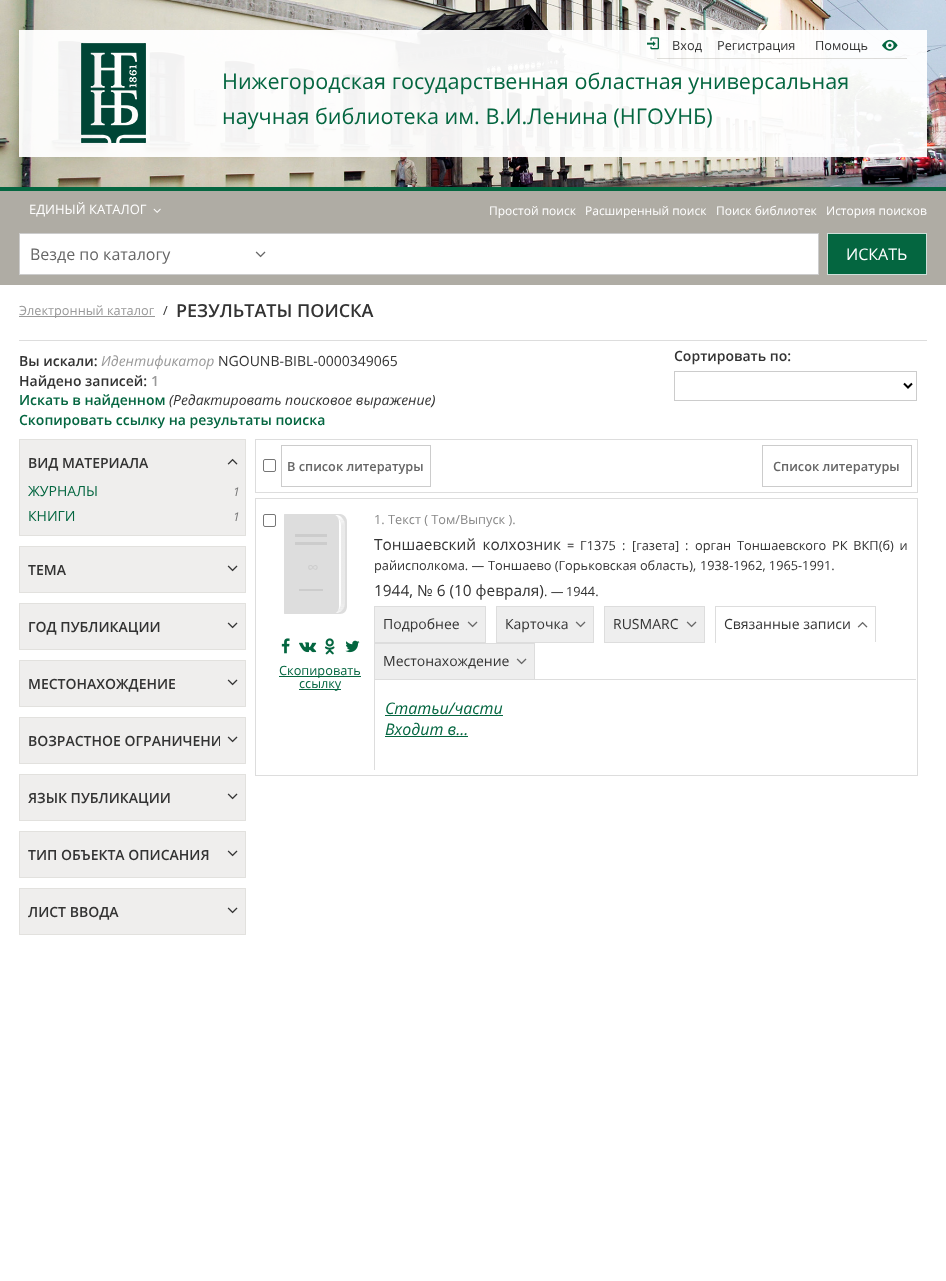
<svg xmlns="http://www.w3.org/2000/svg" width="946" height="1281" viewBox="0 0 946 1281">
  <style>
    .t1 { font: 12.75px Open Sans; fill: #333; }
    .t2 { font: 21.6px Open Sans; fill: #046640; }
    .t3 { font: 13px Open Sans; fill: #fff; }
    .t4 { font: 12px Open Sans; fill: #fff; }
    .t5 { font: 16px Open Sans; fill: #666; }
    .t6 { font: 16px Open Sans; fill: #fff; }
    .t7 { font: 12.75px Open Sans; fill: #999; }
    .t8 { font: 600 18px Open Sans; fill: #333; }
    .t9 { font: 600 14px Open Sans; fill: #333; }
    .t10 { font: italic 14px Open Sans; fill: #999; }
    .t11 { font: 14px Open Sans; fill: #333; }
    .t12 { font: 600 14px Open Sans; fill: #999; }
    .t13 { font: 600 14px Open Sans; fill: #046640; }
    .t14 { font: italic 14px Open Sans; fill: #333; }
    .t15 { font: 14px Open Sans; fill: #046640; }
    .t16 { font: italic 12px Open Sans; fill: #777; }
    .t17 { font: 600 12.75px Open Sans; fill: #666; }
    .t18 { font: italic 16px Open Sans; letter-spacing: -2px; fill: #ccc; }
    .t19 { font: 12.75px Open Sans; fill: #046640; }
    .t20 { font: 12.75px Open Sans; fill: #888; }
    .t21 { font: 15.4px Open Sans; fill: #333; }
    .t22 { font: italic 16px Open Sans; fill: #046640; }
  </style>
  <defs>
    <linearGradient id="g1" gradientUnits="userSpaceOnUse" x1="284" y1="564" x2="345" y2="564"><stop offset="0" stop-color="#eee"/><stop offset="1" stop-color="#fff"/></linearGradient>
    <linearGradient id="g2" gradientUnits="userSpaceOnUse" x1="284" y1="564" x2="344" y2="564"><stop offset="0" stop-color="#eee"/><stop offset="1" stop-color="#fff"/></linearGradient>
    <linearGradient id="g3" gradientUnits="userSpaceOnUse" x1="284" y1="564" x2="343" y2="564"><stop offset="0" stop-color="#eee"/><stop offset="1" stop-color="#fff"/></linearGradient>
    <linearGradient id="g4" gradientUnits="userSpaceOnUse" x1="284" y1="564" x2="342" y2="564"><stop offset="0" stop-color="#eee"/><stop offset="1" stop-color="#fff"/></linearGradient>
  </defs>
  <rect width="100%" height="100%" fill="#fff"/>
  <image x="0" y="0" width="946" height="187" href="images/1.png"/>
  <rect x="19" y="30" width="908" height="29" fill="#fffffff2"/>
  <rect x="657" y="58" width="250" height="1" fill="#afaca466"/>
  <image x="647" y="37" width="12" height="13" href="images/2.png"/>
  <text x="672" y="50" class="t1">Вход</text>
  <text x="717" y="50" class="t1">Регистрация</text>
  <text x="815" y="50" class="t1">Помощь</text>
  <image x="882" y="39" width="16" height="12" href="images/3.png"/>
  <rect x="19" y="59" width="908" height="98" fill="#fffffff2"/>
  <image x="81" y="43" width="65" height="100" href="images/4.png"/>
  <text x="222" y="89" class="t2">Нижегородская государственная областная универсальная</text>
  <text x="222" y="124" class="t2">научная библиотека им. В.И.Ленина (НГОУНБ)</text>
  <rect x="0" y="191" width="946" height="94" fill="#afaca4"/>
  <rect x="0" y="187" width="946" height="4" fill="#046640"/>
  <text x="29" y="214" class="t3">ЕДИНЫЙ КАТАЛОГ</text>
  <image x="153" y="208" width="8" height="5" href="images/5.png"/>
  <text x="489" y="215" class="t4">Простой поиск</text>
  <text x="585" y="215" class="t4">Расширенный поиск</text>
  <text x="716" y="215" class="t4">Поиск библиотек</text>
  <text x="826" y="215" class="t4">История поисков</text>
  <rect x="19.5" y="233.5" width="799" height="41" fill="#fff" stroke="#ccc"/>
  <text x="30" y="260" class="t5">Везде по каталогу</text>
  <image x="255" y="251" width="11" height="7" href="images/6.png"/>
  <rect x="827.5" y="233.5" width="99" height="41" fill="#046640" stroke="#cde0d9"/>
  <text x="846" y="260" class="t6">ИСКАТЬ</text>
  <rect x="19" y="340" width="908" height="1" fill="#ddd"/>
  <rect x="19" y="316" width="136" height="1" fill="#999"/>
  <text x="19" y="315" class="t7">Электронный каталог</text>
  <text x="163" y="315" class="t1">/</text>
  <text x="176" y="317" class="t8">РЕЗУЛЬТАТЫ ПОИСКА</text>
  <text x="19" y="366" class="t9">Вы искали:</text>
  <text x="101" y="366" class="t10">Идентификатор</text>
  <text x="218" y="366" class="t11">NGOUNB-BIBL-0000349065</text>
  <text x="19" y="386" class="t9">Найдено записей:</text>
  <text x="151" y="386" class="t12">1</text>
  <text x="19" y="405" class="t13">Искать в найденном</text>
  <text x="169" y="405" class="t14">(Редактировать поисковое выражение)</text>
  <text x="19" y="425" class="t13">Скопировать ссылку на результаты поиска</text>
  <text x="674" y="361" class="t9">Сортировать по:</text>
  <rect x="674.5" y="371.5" width="242" height="29" fill="none" stroke="#ccc"/>
  <path d="M904 383.5L908 387.5L912 383.5" fill="none" stroke="#000" stroke-width="2"/>
  <rect x="19.5" y="439.5" width="226" height="96" fill="#efeeed" stroke="#e2e1de"/>
  <text x="28" y="468" class="t9">ВИД МАТЕРИАЛА</text>
  <image x="227" y="458" width="11" height="7" href="images/7.png"/>
  <text x="28" y="496" class="t15">ЖУРНАЛЫ</text>
  <text x="233" y="496" class="t16">1</text>
  <text x="28" y="521" class="t15">КНИГИ</text>
  <text x="233" y="521" class="t16">1</text>
  <rect x="19.5" y="546.5" width="226" height="46" fill="#efeeed" stroke="#e2e1de"/>
  <text x="28" y="575" class="t9">ТЕМА</text>
  <image x="227" y="565" width="11" height="7" href="images/8.png"/>
  <rect x="19.5" y="603.5" width="226" height="46" fill="#efeeed" stroke="#e2e1de"/>
  <text x="28" y="632" class="t9">ГОД ПУБЛИКАЦИИ</text>
  <image x="227" y="622" width="11" height="7" href="images/8.png"/>
  <rect x="19.5" y="660.5" width="226" height="46" fill="#efeeed" stroke="#e2e1de"/>
  <text x="28" y="689" class="t9">МЕСТОНАХОЖДЕНИЕ</text>
  <image x="227" y="679" width="11" height="7" href="images/8.png"/>
  <rect x="19.5" y="717.5" width="226" height="46" fill="#efeeed" stroke="#e2e1de"/>
  <text x="28" y="746" class="t9">ВОЗРАСТНОЕ ОГРАНИЧЕНИ</text>
  <rect x="220" y="736" width="1" height="10" fill="#efeeed"/>
  <image x="227" y="736" width="11" height="7" href="images/8.png"/>
  <rect x="19.5" y="774.5" width="226" height="46" fill="#efeeed" stroke="#e2e1de"/>
  <text x="28" y="803" class="t9">ЯЗЫК ПУБЛИКАЦИИ</text>
  <image x="227" y="793" width="11" height="7" href="images/8.png"/>
  <rect x="19.5" y="831.5" width="226" height="46" fill="#efeeed" stroke="#e2e1de"/>
  <text x="28" y="860" class="t9">ТИП ОБЪЕКТА ОПИСАНИЯ</text>
  <image x="227" y="850" width="11" height="7" href="images/8.png"/>
  <rect x="19.5" y="888.5" width="226" height="46" fill="#efeeed" stroke="#e2e1de"/>
  <text x="28" y="917" class="t9">ЛИСТ ВВОДА</text>
  <image x="227" y="907" width="11" height="7" href="images/8.png"/>
  <rect x="255.5" y="439.5" width="662" height="53" fill="none" stroke="#ddd"/>
  <rect x="263.5" y="459.5" width="12" height="12" rx="1.5" fill="none" stroke="#767676"/>
  <rect x="281.5" y="445.5" width="149" height="41" fill="none" stroke="#ccc"/>
  <text x="287" y="471" class="t17">В список литературы</text>
  <rect x="762.5" y="445.5" width="149" height="41" fill="none" stroke="#ccc"/>
  <text x="773" y="471" class="t17">Список литературы</text>
  <rect x="255.5" y="498.5" width="662" height="277" fill="none" stroke="#ddd"/>
  <rect x="263.5" y="514.5" width="12" height="12" rx="1.5" fill="none" stroke="#767676"/>
  <path d="M285 514H340C344 514 347 518 347 522V606C347 611 344 614 340 614H285C284 614 284 613 284 612V516C284 515 284 514 285 514Z" fill="#ddd"/>
  <path d="M284 515H336C341 515 345 520 345 525V603C345 609 341 613 336 613H284Z" fill="url(#g1)"/>
  <path d="M284 613H336C341 613 345 609 345 603V525C345 521 342 517 339 516C342 517 344 521 344 525V603C344 609 340 613 336 613Z" fill="#96969633"/>
  <path d="M284 515H335C340 515 344 520 344 525V603C344 609 340 613 335 613H284Z" fill="url(#g2)"/>
  <path d="M284 613H335C340 613 344 609 344 603V525C344 521 341 517 338 516C341 517 343 521 343 525V603C343 609 339 613 335 613Z" fill="#96969633"/>
  <path d="M284 515H334C339 515 343 520 343 525V603C343 609 339 613 334 613H284Z" fill="url(#g3)"/>
  <path d="M284 613H334C339 613 343 609 343 603V525C343 521 340 517 337 516C340 517 342 521 342 525V603C342 609 338 613 334 613Z" fill="#96969633"/>
  <path d="M284 515H333C338 515 342 520 342 525V603C342 609 338 613 333 613H284Z" fill="url(#g4)"/>
  <path d="M284 613H333C338 613 342 609 342 603V525C342 521 339 517 336 516C339 518 341 521 341 525V603C341 609 337 613 333 613Z" fill="#96969633"/>
  <path d="M284 613H332C337 613 340 609 340 603V525C340 521 338 517 334 516C338 517 340 521 340 525V603C340 609 336 613 331 613Z" fill="#e9e9e9"/>
  <path d="M285 514H332C336 514 339 518 339 522V606C339 611 336 614 332 614H285C284 614 284 613 284 612V516C284 515 284 514 285 514Z" fill="#ddd"/>
  <rect x="295" y="534" width="32" height="3" fill="#ccc"/>
  <rect x="295" y="542" width="32" height="3" fill="#ccc"/>
  <rect x="299" y="589" width="24" height="2" fill="#ccc"/>
  <text x="307" y="573" class="t18">∞</text>
  <image x="281" y="638" width="9" height="16" href="images/9.png"/>
  <image x="299" y="642" width="18" height="11" href="images/10.png"/>
  <image x="324" y="638" width="11" height="17" href="images/11.png"/>
  <image x="345" y="640" width="15" height="13" href="images/12.png"/>
  <rect x="279" y="676" width="82" height="1" fill="#046640"/>
  <text x="279" y="675" class="t19">Скопировать</text>
  <rect x="299" y="689" width="42" height="1" fill="#046640"/>
  <text x="299" y="688" class="t19">ссылку</text>
  <text x="374" y="524" class="t20">1. Текст ( Том/Выпуск ).</text>
  <text x="374" y="550" word-spacing="2.5" class="t21">Тоншаевский колхозник</text>
  <text x="567" y="550" class="t1">=</text>
  <text x="580" y="550" class="t1">Г1375</text>
  <text x="622" y="550" class="t1">:</text>
  <text x="632" y="550" class="t1">[газета]</text>
  <text x="685" y="550" class="t1">:</text>
  <text x="695" y="550" word-spacing="2.5" class="t1">орган Тоншаевского РК ВКП(б) и</text>
  <text x="374" y="570" class="t1">райисполкома. —</text>
  <text x="488" y="570" class="t1">Тоншаево (Горьковская область),</text>
  <text x="700" y="570" class="t1">1938-1962, 1965-1991.</text>
  <text x="374" y="596" class="t21">1944, № 6 (10 февраля)</text>
  <text x="544" y="596" class="t1">. —</text>
  <text x="566" y="596" class="t1">1944.</text>
  <rect x="374.5" y="606.5" width="111" height="36" fill="#eee" stroke="#ddd"/>
  <text x="383" y="629" class="t11">Подробнее</text>
  <image x="467" y="621" width="11" height="7" href="images/13.png"/>
  <rect x="496.5" y="606.5" width="97" height="36" fill="#eee" stroke="#ddd"/>
  <text x="505" y="629" class="t11">Карточка</text>
  <image x="575" y="621" width="11" height="7" href="images/13.png"/>
  <rect x="604.5" y="606.5" width="100" height="36" fill="#eee" stroke="#ddd"/>
  <text x="613" y="629" class="t11">RUSMARC</text>
  <image x="686" y="621" width="11" height="7" href="images/13.png"/>
  <rect x="715" y="606" width="161" height="1" fill="#ddd"/>
  <rect x="875" y="606" width="1" height="37" fill="#ddd"/>
  <rect x="875" y="642" width="1" height="1" fill="#fff"/>
  <rect x="715" y="606" width="1" height="37" fill="#ddd"/>
  <text x="724" y="629" class="t11">Связанные записи</text>
  <image x="857" y="621" width="11" height="7" href="images/14.png"/>
  <rect x="374" y="679" width="1" height="91" fill="#ddd"/>
  <rect x="374.5" y="643.5" width="160" height="36" fill="#eee" stroke="#ddd"/>
  <text x="383" y="666" class="t11">Местонахождение</text>
  <image x="516" y="658" width="11" height="7" href="images/13.png"/>
  <rect x="535" y="679" width="381" height="1" fill="#ddd"/>
  <text x="385" y="714" class="t22">Статьи/части</text>
  <rect x="385" y="715" width="118" height="1" fill="#046640"/>
  <text x="385" y="735" class="t22">Входит в...</text>
  <rect x="385" y="736" width="83" height="1" fill="#046640"/>
</svg>
